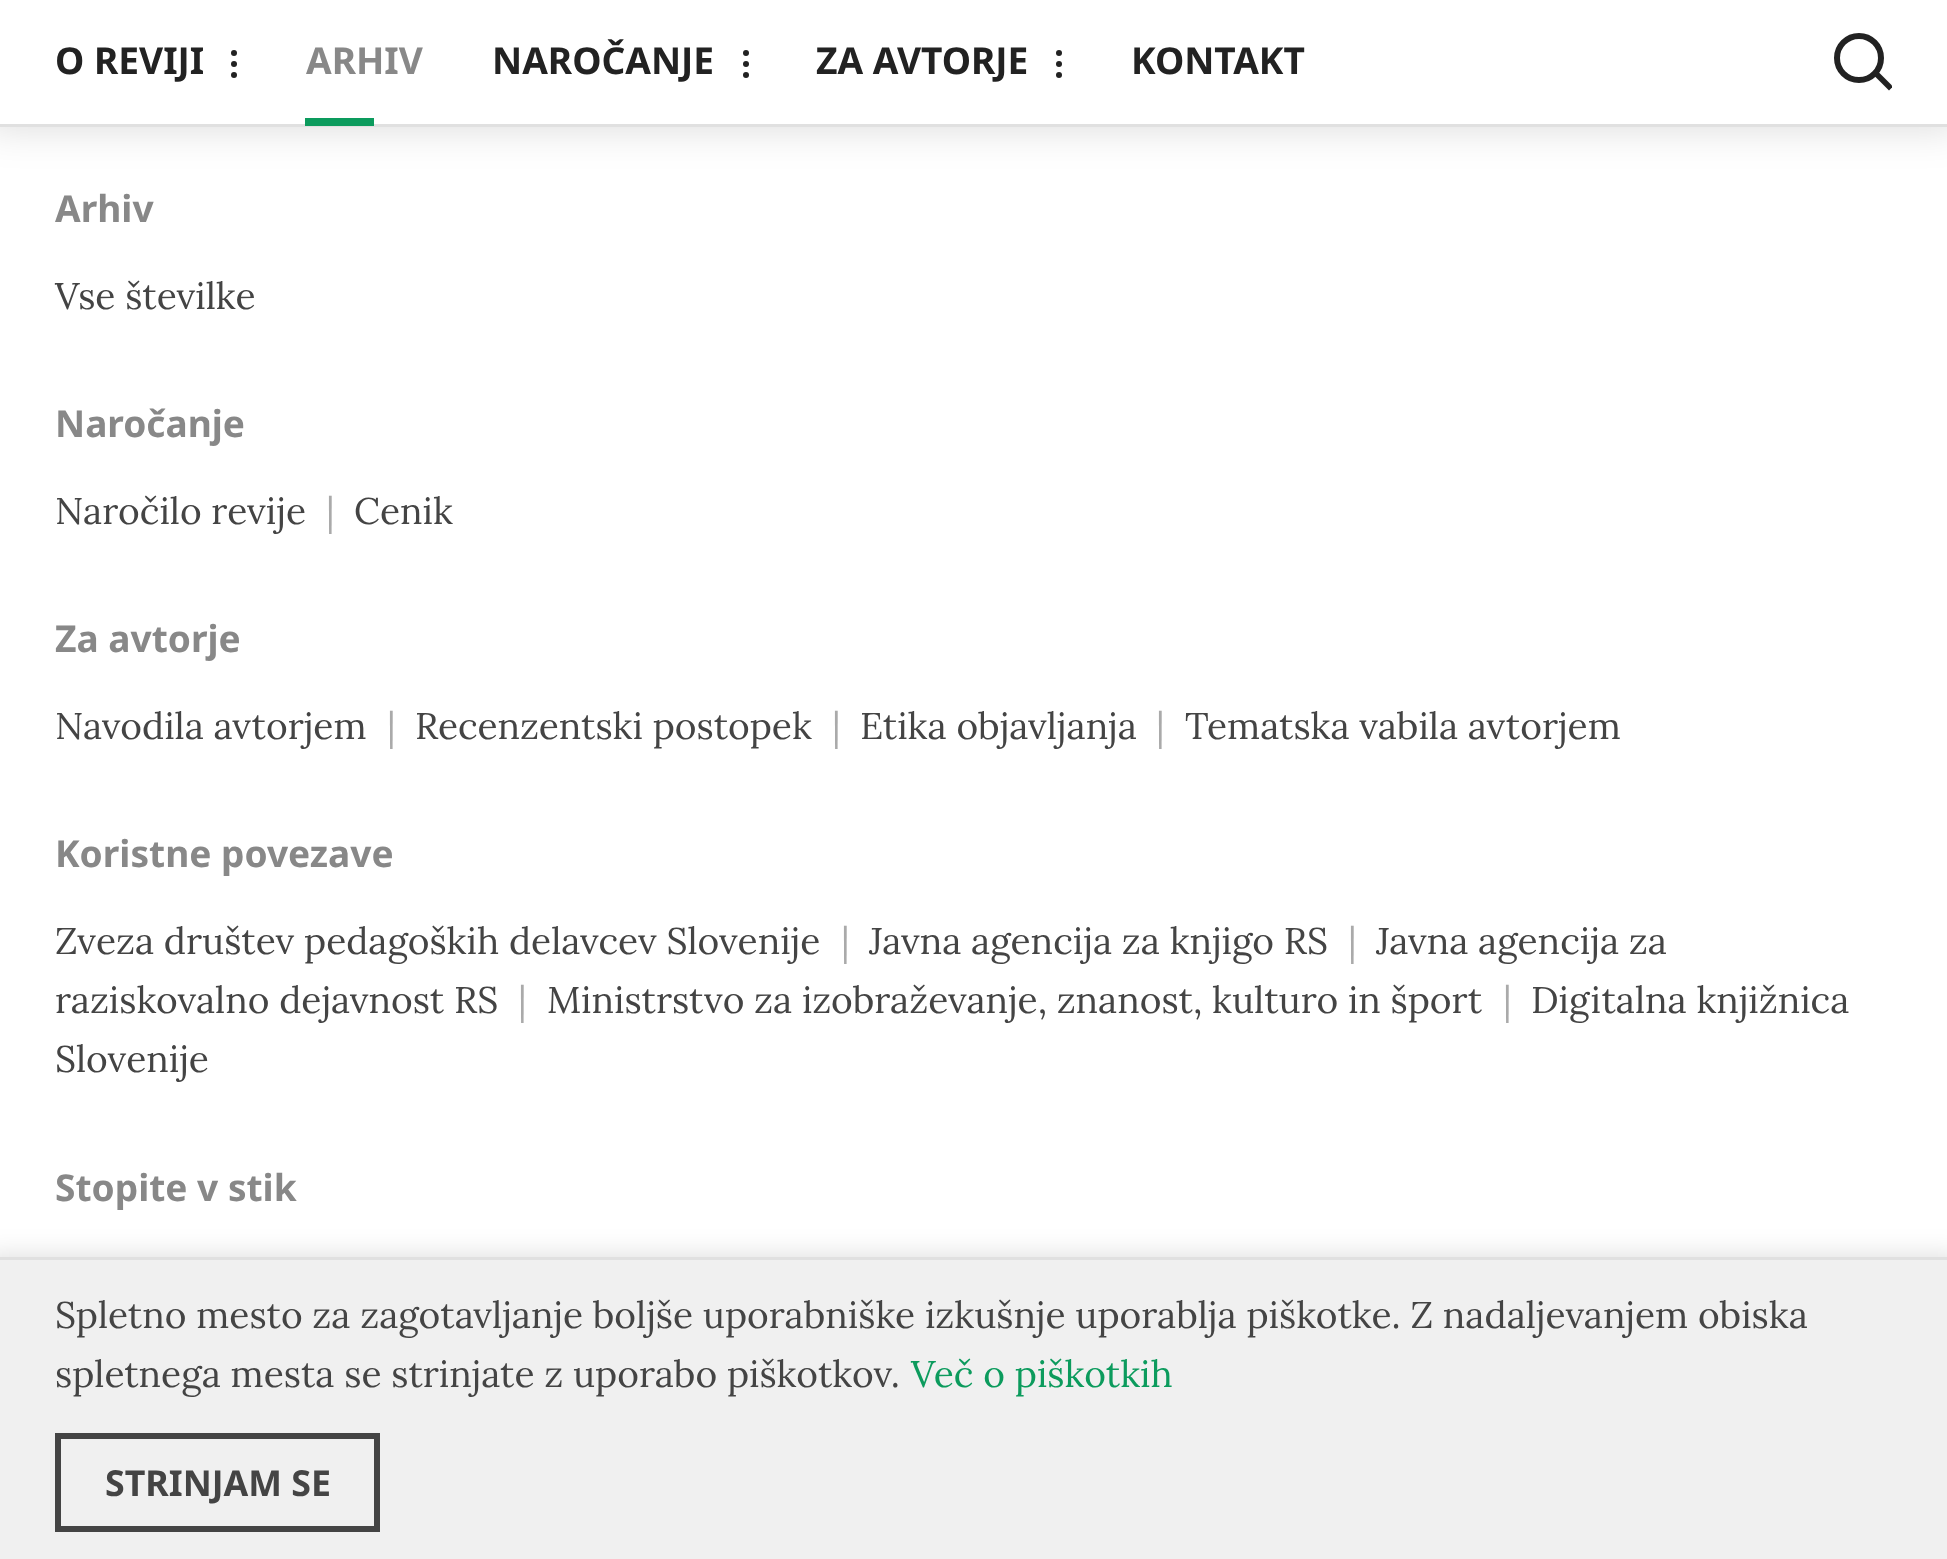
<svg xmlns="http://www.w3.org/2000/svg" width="1947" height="1559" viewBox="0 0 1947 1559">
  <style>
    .t1 { font: bold 37.1px Noto Sans; fill: #222; }
    .t2 { font: bold 37.1px Noto Sans; fill: #888; }
    .t3 { font: 37.1px Lora; fill: #444; }
    .t4 { font: 37.1px Lora; fill: #aaa; }
    .t5 { font: 37.1px Lora; fill: #0c9b5d; }
    .t6 { font: bold 35.75px Noto Sans; fill: #444; }
  </style>
  <defs>
    <clipPath id="clip1"><rect x="1821" y="25" width="71" height="71"/></clipPath>
  </defs>
  <rect width="100%" height="100%" fill="#fff"/>
  <rect x="-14" y="-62" width="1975" height="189" fill="#00000026" filter="blur(20.5px)"/>
  <rect x="0" y="124" width="1947" height="3" fill="#e0e0e0"/>
  <rect x="0" y="0" width="1947" height="124" fill="#fff"/>
  <text x="55" y="74" class="t1">O REVIJI</text>
  <circle cx="234" cy="64" r="3" fill="#222"/>
  <circle cx="234" cy="53" r="3" fill="#222"/>
  <circle cx="234" cy="75" r="3" fill="#222"/>
  <text x="306" y="74" class="t2">ARHIV</text>
  <rect x="305" y="118" width="69" height="8" fill="#0c9b5d"/>
  <text x="492" y="74" class="t1">NAROČANJE</text>
  <circle cx="746" cy="64" r="3" fill="#222"/>
  <circle cx="746" cy="53" r="3" fill="#222"/>
  <circle cx="746" cy="75" r="3" fill="#222"/>
  <text x="816" y="74" class="t1">ZA AVTORJE</text>
  <circle cx="1059" cy="64" r="3" fill="#222"/>
  <circle cx="1059" cy="53" r="3" fill="#222"/>
  <circle cx="1059" cy="75" r="3" fill="#222"/>
  <text x="1131" y="74" class="t1">KONTAKT</text>
  <circle cx="1859" cy="58" r="22" fill="none" stroke="#222" stroke-width="6"/>
  <g clip-path="url(#clip1)">
    <path d="M1875.5 69L1893 86.5L1889 90.5L1871.5 73Z" fill="#222"/>
  </g>
  <text x="55" y="222" class="t2">Arhiv</text>
  <text x="55" y="309" class="t3">Vse številke</text>
  <text x="55" y="437" class="t2">Naročanje</text>
  <text x="55" y="524" class="t3">Naročilo revije</text>
  <text x="326" y="524" class="t4">|</text>
  <text x="354" y="524" class="t3">Cenik</text>
  <text x="55" y="652" class="t2">Za avtorje</text>
  <text x="55" y="739" class="t3">Navodila avtorjem</text>
  <text x="387" y="739" class="t4">|</text>
  <text x="415" y="739" class="t3">Recenzentski postopek</text>
  <text x="832" y="739" class="t4">|</text>
  <text x="860" y="739" class="t3">Etika objavljanja</text>
  <text x="1156" y="739" class="t4">|</text>
  <text x="1185" y="739" class="t3">Tematska vabila avtorjem</text>
  <text x="55" y="867" class="t2">Koristne povezave</text>
  <text x="55" y="954" class="t3">Zveza društev pedagoških delavcev Slovenije</text>
  <text x="841" y="954" class="t4">|</text>
  <text x="869" y="954" class="t3">Javna agencija za knjigo RS</text>
  <text x="1348" y="954" class="t4">|</text>
  <text x="1376" y="954" class="t3">Javna agencija za</text>
  <text x="55" y="1013" class="t3">raziskovalno dejavnost RS</text>
  <text x="518" y="1013" class="t4">|</text>
  <text x="547" y="1013" class="t3">Ministrstvo za izobraževanje, znanost, kulturo in šport</text>
  <text x="1503" y="1013" class="t4">|</text>
  <text x="1531" y="1013" class="t3">Digitalna knjižnica</text>
  <text x="55" y="1072" class="t3">Slovenije</text>
  <text x="55" y="1201" class="t2">Stopite v stik</text>
  <rect x="-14" y="1257" width="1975" height="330" fill="#00000026" filter="blur(14px)"/>
  <rect x="0" y="1260" width="1947" height="299" fill="#f0f0f0"/>
  <rect x="0" y="1257" width="1947" height="3" fill="#e0e0e0"/>
  <text x="55" y="1328" class="t3">Spletno mesto za zagotavljanje boljše uporabniške izkušnje uporablja piškotke. Z nadaljevanjem obiska</text>
  <text x="55" y="1387" class="t3">spletnega mesta se strinjate z uporabo piškotkov.</text>
  <text x="911" y="1387" class="t5">Več o piškotkih</text>
  <rect x="58" y="1436" width="319" height="93" fill="none" stroke="#444" stroke-width="6"/>
  <text x="105" y="1496" class="t6">STRINJAM SE</text>
</svg>
